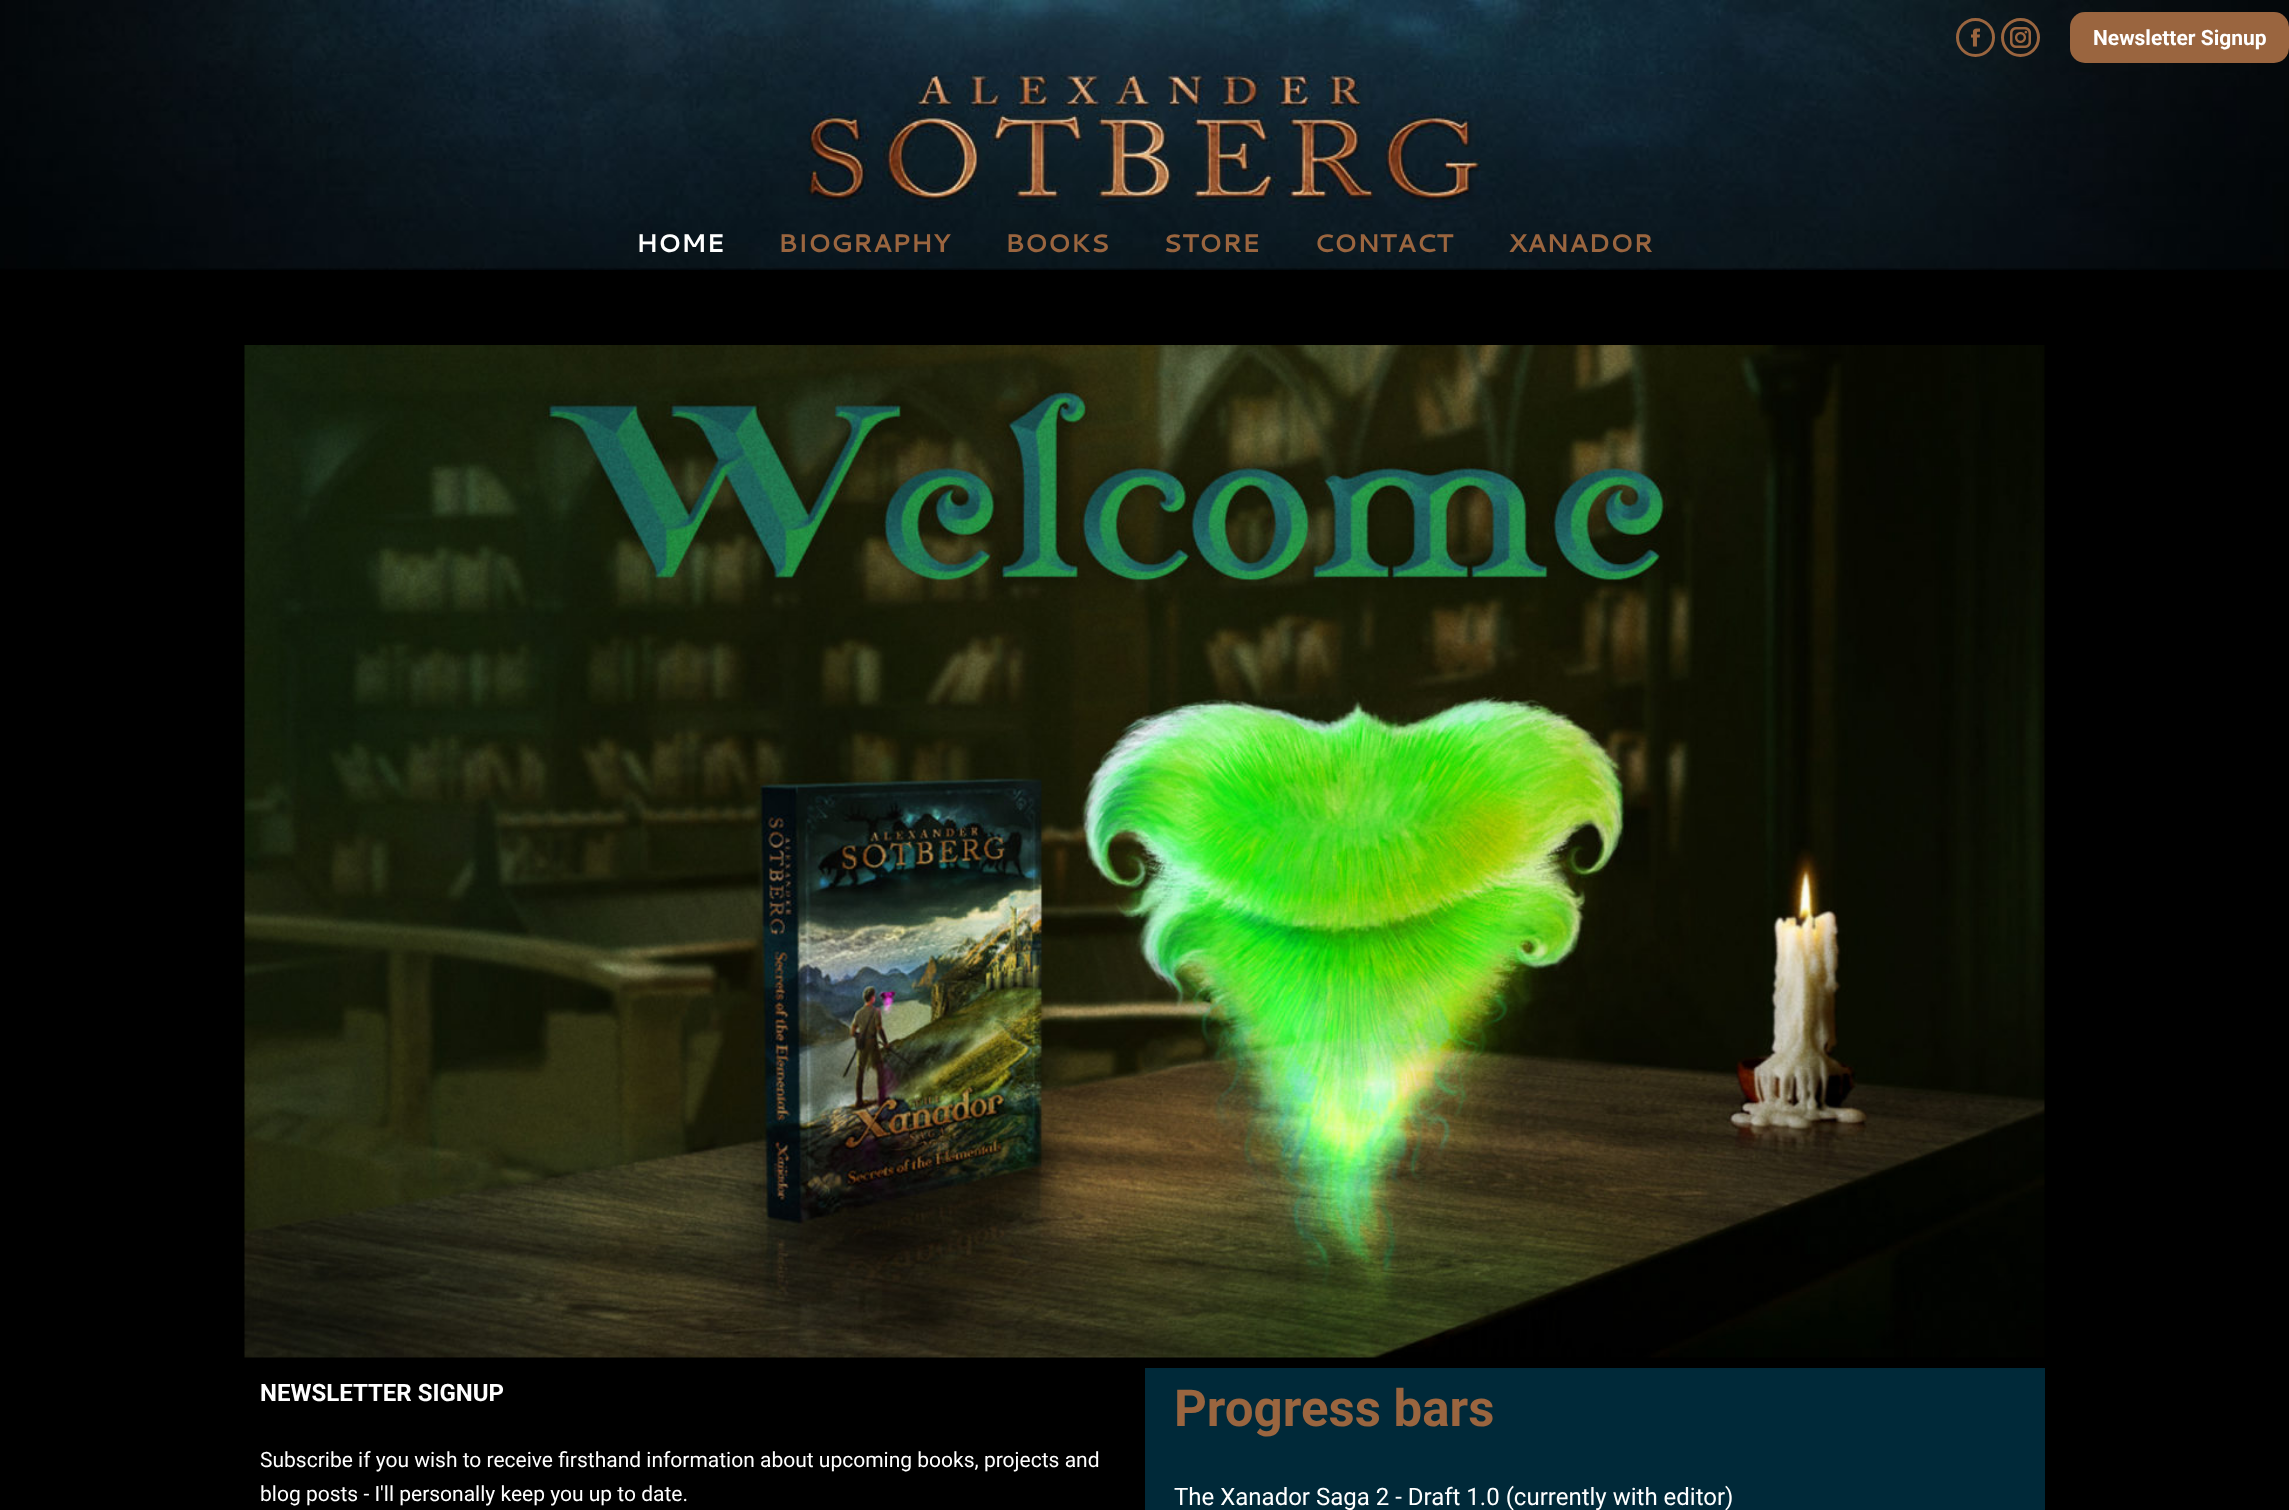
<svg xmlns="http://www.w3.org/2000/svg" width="2289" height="1510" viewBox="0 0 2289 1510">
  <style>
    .t1 { font: bold 21px Roboto; fill: #fff; }
    .t2 { font: bold 25.5px Cantarell; fill: #fff; }
    .t3 { font: bold 25.5px Cantarell; fill: #9a653f; }
    .t4 { font: bold 24px Roboto; fill: #fff; }
    .t5 { font: 21px Roboto; fill: #fff; }
    .t6 { font: bold 51px Roboto; fill: #9a653f; }
    .t7 { font: 24px Roboto; fill: #fff; }
  </style>
  <rect width="100%" height="100%" fill="#000"/>
  <image x="0" y="75" width="2289" height="195" href="images/1.png"/>
  <image x="0" y="0" width="2289" height="75" href="images/2.png"/>
  <circle cx="1975.5" cy="37.5" r="18" fill="none" stroke="#9a653f" stroke-width="3"/>
  <image x="1971" y="28" width="9" height="19" href="images/3.png"/>
  <circle cx="2020.5" cy="37.5" r="18" fill="none" stroke="#9a653f" stroke-width="3"/>
  <image x="2010" y="27" width="21" height="21" href="images/4.png"/>
  <rect x="2070" y="12" width="219" height="51" rx="15" fill="#9a653f"/>
  <text x="2093" y="45" class="t1">Newsletter Signup</text>
  <text x="636" y="252" class="t2">HOME</text>
  <text x="778" y="252" class="t3">BIOGRAPHY</text>
  <text x="1005" y="252" class="t3">BOOKS</text>
  <text x="1163" y="252" class="t3">STORE</text>
  <text x="1314" y="252" class="t3">CONTACT</text>
  <text x="1508" y="252" class="t3">XANADOR</text>
  <image x="244" y="345" width="1801" height="1013" href="images/5.png"/>
  <text x="260" y="1401" class="t4">NEWSLETTER SIGNUP</text>
  <text x="260" y="1467" class="t5">Subscribe if you wish to receive firsthand information about upcoming books, projects and</text>
  <text x="260" y="1501" class="t5">blog posts - I'll personally keep you up to date.</text>
  <rect x="1145" y="1368" width="900" height="142" fill="#002939"/>
  <text x="1174" y="1426" class="t6">Progress bars</text>
  <text x="1174" y="1505" class="t7">The Xanador Saga 2 - Draft 1.0 (currently with editor)</text>
</svg>
